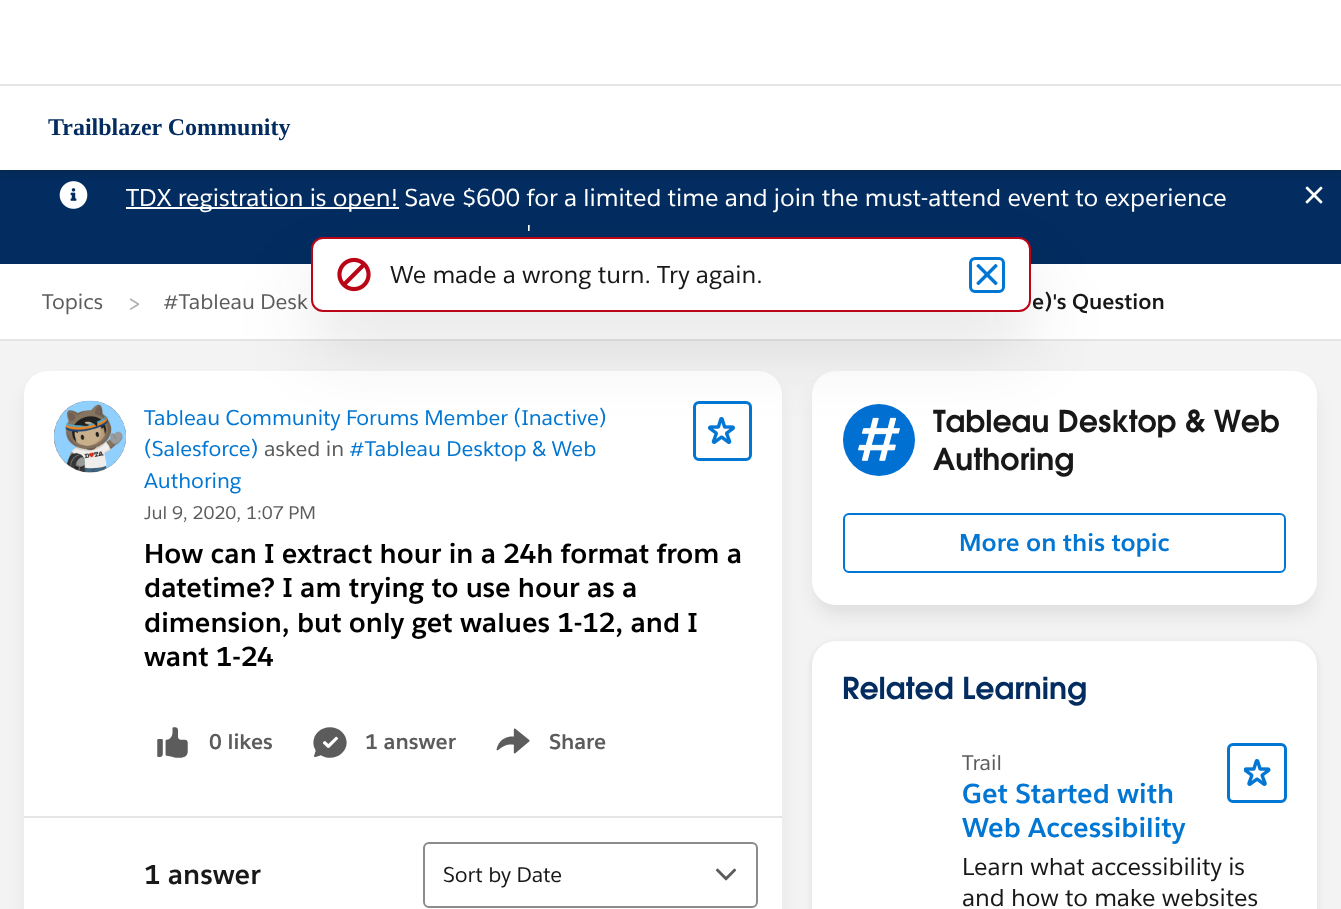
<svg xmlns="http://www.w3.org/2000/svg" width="1341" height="909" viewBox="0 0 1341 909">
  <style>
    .t1 { font: bold 24px Liberation Serif; fill: #032d60; }
    .t2 { font: 24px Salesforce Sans; fill: #fff; }
    .t3 { font: 24px Salesforce Sans; fill: #181818; }
    .t4 { font: 21px Salesforce Sans; fill: #5c5c5c; }
    .t5 { font: 24px Salesforce Sans; fill: #aeaeae; }
    .t6 { font: bold 21px Salesforce Sans; fill: #181818; }
    .t7 { font: 21px Salesforce Sans; fill: #0176d3; }
    .t8 { font: 18px Salesforce Sans; fill: #5c5c5c; }
    .t9 { font: bold 27px Salesforce Sans; fill: #000; }
    .t10 { font: bold 21px Salesforce Sans; fill: #5c5c5c; }
    .t11 { font: bold 27px Salesforce Sans; fill: #181818; }
    .t12 { font: 21px Salesforce Sans; fill: #181818; }
    .t13 { font: 600 30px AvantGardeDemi; fill: #181818; }
    .t14 { font: bold 24px Salesforce Sans; fill: #0176d3; }
    .t15 { font: 600 30px AvantGardeDemi; fill: #032d60; }
    .t16 { font: bold 27px Salesforce Sans; fill: #0176d3; }
  </style>
  <rect width="100%" height="100%" fill="#f3f3f3"/>
  <rect x="0" y="170" width="1341" height="94" fill="#032d60"/>
  <image x="59" y="181" width="29" height="28" href="images/1.png"/>
  <rect x="-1" y="86" width="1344" height="88" fill="#18181829" filter="blur(3px)"/>
  <rect x="0" y="84" width="1341" height="86" fill="#18181814" filter="blur(1.5px)"/>
  <rect x="0" y="0" width="1341" height="84" fill="#fff"/>
  <rect x="126" y="207" width="273" height="2" fill="#fff"/>
  <rect x="0" y="264" width="1341" height="75" fill="#fff"/>
  <rect x="0" y="339" width="1341" height="2" fill="#e5e5e5"/>
  <rect x="27" y="386" width="752" height="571" rx="21" fill="#18181817" filter="blur(9px)"/>
  <rect x="24" y="371" width="758" height="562" rx="24" fill="#fff"/>
  <rect x="694.5" y="402.5" width="56" height="57" rx="4.5" fill="none" stroke="#0176d3" stroke-width="3"/>
  <image x="708" y="417" width="27" height="27" href="images/6.png"/>
  <rect x="810" y="641" width="509" height="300" rx="26" fill="#1818180f" filter="blur(2px)"/>
  <rect x="812" y="641" width="505" height="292" rx="24" fill="#fff"/>
  <rect x="815" y="386" width="499" height="228" rx="21" fill="#18181817" filter="blur(9px)"/>
  <rect x="812" y="371" width="505" height="234" rx="24" fill="#fff"/>
  <circle cx="879" cy="440" r="36" fill="#0070d2"/>
  <image x="858" y="417" width="42" height="44" href="images/11.png"/>
  <rect x="314" y="276" width="714" height="69" rx="9" fill="#1818181f" filter="blur(36px)"/>
  <rect x="0" y="86" width="1341" height="84" fill="#fff"/>
  <rect x="0" y="84" width="1341" height="2" fill="#e5e5e5"/>
  <text x="48" y="135" class="t1">Trailblazer Community</text>
  <text x="126" y="206" class="t2">TDX registration is open! Save $600 for a limited time and join the must-attend event to experience</text>
  <text x="526" y="242" class="t2">'</text>
  <image x="1305" y="186" width="18" height="18" href="images/2.png"/>
  <rect x="312" y="238" width="718" height="73" rx="11" fill="#fff" stroke="#ba0517" stroke-width="2"/>
  <image x="337" y="257" width="34" height="35" href="images/3.png"/>
  <text x="390" y="283" class="t3">We made a wrong turn. Try again.</text>
  <rect x="970.5" y="258.5" width="33" height="33" rx="4.5" fill="none" stroke="#0176d3" stroke-width="3"/>
  <image x="976" y="263" width="22" height="23" href="images/4.png"/>
  <text x="42" y="309" class="t4">Topics</text>
  <text x="127" y="311" class="t5">&gt;</text>
  <text x="163" y="309" class="t4">#Tableau Desk</text>
  <text x="1032" y="309" class="t6">e)'s Question</text>
  <circle cx="90" cy="437" r="36" fill="#e5e5e5"/>
  <image x="54" y="400" width="72" height="73" href="images/5.png"/>
  <text x="144" y="425" class="t7">Tableau Community Forums Member (Inactive)</text>
  <text x="144" y="456" class="t7">(Salesforce)</text>
  <text x="264" y="456" class="t4">asked in</text>
  <text x="349" y="456" class="t7">#Tableau Desktop &amp; Web</text>
  <text x="144" y="488" class="t7">Authoring</text>
  <text x="144" y="519" class="t8">Jul 9, 2020, 1:07 PM</text>
  <text x="144" y="563" class="t9">How can I extract hour in a 24h format from a</text>
  <text x="144" y="597" class="t9">datetime? I am trying to use hour as a</text>
  <text x="144" y="632" class="t9">dimension, but only get walues 1-12, and I</text>
  <text x="144" y="666" class="t9">want 1-24</text>
  <image x="157" y="727" width="31" height="31" href="images/7.png"/>
  <text x="209" y="749" class="t10">0 likes</text>
  <image x="313" y="727" width="34" height="31" href="images/8.png"/>
  <text x="365" y="749" class="t10">1 answer</text>
  <image x="496" y="728" width="34" height="26" href="images/9.png"/>
  <text x="549" y="749" class="t10">Share</text>
  <rect x="24" y="816" width="758" height="2" fill="#e5e5e5"/>
  <text x="144" y="884" class="t11">1 answer</text>
  <rect x="424" y="843" width="333" height="64" rx="5" fill="none" stroke="#8c8c8c" stroke-width="2"/>
  <text x="443" y="882" class="t12">Sort by Date</text>
  <image x="715" y="868" width="22" height="13" href="images/10.png"/>
  <text x="933" y="432" class="t13">Tableau Desktop &amp; Web</text>
  <text x="933" y="470" class="t13">Authoring</text>
  <rect x="844" y="514" width="441" height="58" rx="5" fill="none" stroke="#0176d3" stroke-width="2"/>
  <text x="959" y="551" class="t14">More on this topic</text>
  <text x="842" y="699" class="t15">Related Learning</text>
  <text x="962" y="770" class="t4">Trail</text>
  <rect x="1228.5" y="744.5" width="57" height="57" rx="4.5" fill="none" stroke="#0176d3" stroke-width="3"/>
  <image x="1244" y="759" width="27" height="27" href="images/12.png"/>
  <text x="962" y="803" class="t16">Get Started with</text>
  <text x="962" y="837" class="t16">Web Accessibility</text>
  <text x="962" y="875" class="t3">Learn what accessibility is</text>
  <text x="962" y="906" class="t3">and how to make websites</text>
</svg>
